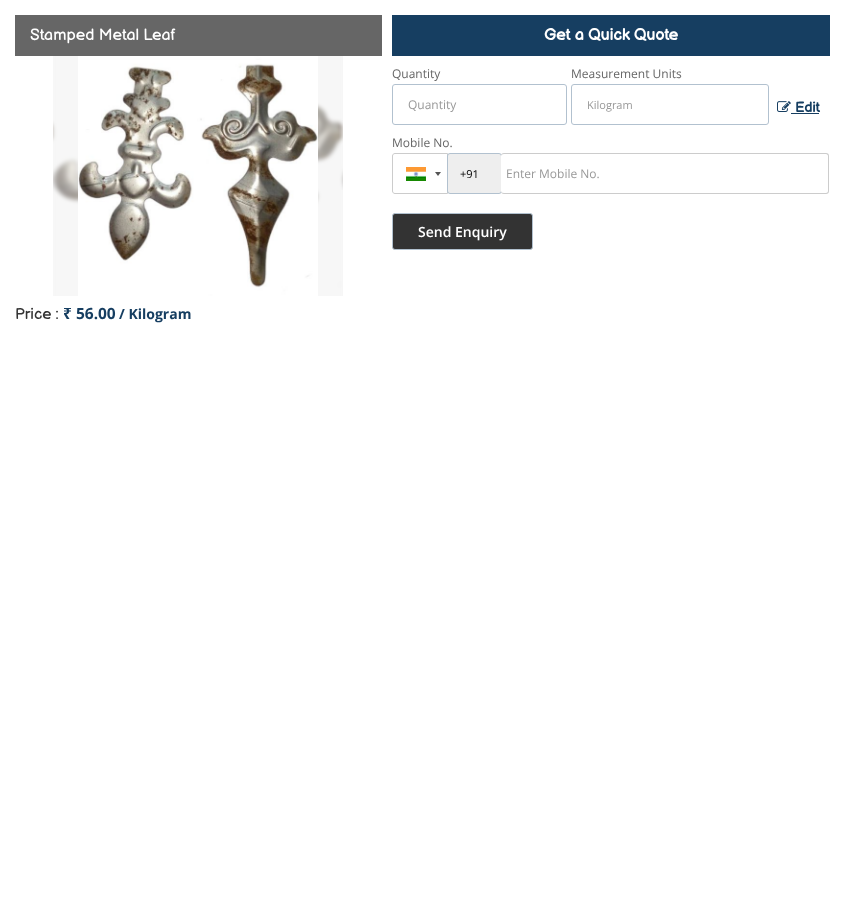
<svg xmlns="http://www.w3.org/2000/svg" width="845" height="912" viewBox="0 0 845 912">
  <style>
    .t1 { font: 16px Balsamiq Sans; fill: #fff; }
    .t2 { font: 15.5px Balsamiq Sans; fill: #333; }
    .t3 { font: bold 15.5px Noto Sans; fill: #163e61; }
    .t4 { font: bold 14px Open Sans; fill: #163e61; }
    .t5 { font: bold 16px Balsamiq Sans; fill: #fff; }
    .t6 { font: 12px Open Sans; fill: #666; }
    .t7 { font: 12px Open Sans; fill: #999; }
    .t8 { font: 11px Open Sans; fill: #999; }
    .t9 { font: bold 14px Balsamiq Sans; fill: #163e61; }
    .t10 { font: 11px Open Sans; fill: #000; }
    .t11 { font: 600 14px Open Sans; fill: #fff; }
  </style>
  <defs>
    <clipPath id="clip1"><rect x="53" y="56" width="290" height="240"/></clipPath>
  </defs>
  <rect width="100%" height="100%" fill="#fff"/>
  <rect x="53" y="56" width="5" height="240" fill="#f7f7f7"/>
  <rect x="15" y="15" width="367" height="41" fill="#666"/>
  <text x="30" y="40" class="t1">Stamped Metal Leaf</text>
  <image x="53" y="120" width="5" height="24" href="images/1.png"/>
  <g clip-path="url(#clip1)">
    <rect x="-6" y="46" width="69" height="260" fill="#f7f7f780" filter="blur(2px)"/>
  </g>
  <image x="53" y="56" width="290" height="240" href="images/2.png"/>
  <g clip-path="url(#clip1)">
    <rect x="53" y="46" width="300" height="260" fill="#f7f7f780" filter="blur(2px)"/>
  </g>
  <image x="78" y="56" width="240" height="240" href="images/3.png"/>
  <image x="339" y="121" width="4" height="69" href="images/4.png"/>
  <rect x="392" y="15" width="438" height="41" fill="#163e61"/>
  <rect x="392.5" y="84.5" width="174" height="40" rx="2.5" fill="none" stroke="#b2c1cf"/>
  <rect x="571.5" y="84.5" width="197" height="40" rx="2.5" fill="none" stroke="#b2c1cf"/>
  <rect x="392.5" y="213.5" width="140" height="36" rx="2.5" fill="#333" stroke="#b2c1cf"/>
  <g clip-path="url(#clip1)">
    <rect x="343" y="46" width="300" height="260" fill="#f7f7f780" filter="blur(2px)"/>
  </g>
  <text x="15" y="319" class="t2">Price :</text>
  <text x="63" y="319" class="t3">₹ 56.00</text>
  <text x="119" y="319" class="t4">/ Kilogram</text>
  <text x="544" y="40" class="t5">Get a Quick Quote</text>
  <text x="392" y="78" class="t6">Quantity</text>
  <text x="408" y="109" class="t7">Quantity</text>
  <text x="571" y="78" class="t6">Measurement Units</text>
  <text x="587" y="109" class="t8">Kilogram</text>
  <image x="777" y="101" width="14" height="11" href="images/5.png"/>
  <text x="795" y="112" class="t9">Edit</text>
  <rect x="791" y="113" width="28" height="1" fill="#163e61"/>
  <text x="392" y="147" class="t6">Mobile No.</text>
  <path d="M395 153.5H447.5V193.5H395C393.5 193.5 392.5 192.5 392.5 191V156C392.5 154.5 393.5 153.5 395 153.5Z" fill="none" stroke="#ccc"/>
  <rect x="406" y="167" width="20" height="14" fill="#888" filter="blur(0.5px)"/>
  <image x="406" y="167" width="20" height="14" href="images/6.png"/>
  <path d="M435 172H441L438 176Z" fill="#555"/>
  <rect x="447.5" y="153.5" width="54" height="40" rx="2.5" fill="#eee" stroke="#b2c1cf"/>
  <text x="460" y="178" class="t10">+91</text>
  <path d="M504 154H826C827 154 828 155 828 156V191C828 192 827 193 826 193H504C502 193 501 192 501 191V156C501 155 502 154 504 154Z" fill="#fff"/>
  <path d="M504 153H826C828 153 829 154 829 156V191C829 193 828 194 826 194H504C502 194 501 193 501 191V156C501 154 502 153 504 153ZM504 154H826C827 154 828 155 828 156V191C828 192 827 193 826 193H504C502 193 501 192 501 191V156C501 155 502 154 504 154Z" fill="#ccc" fill-rule="evenodd"/>
  <text x="506" y="178" class="t7">Enter Mobile No.</text>
  <text x="418" y="237" class="t11">Send Enquiry</text>
</svg>
